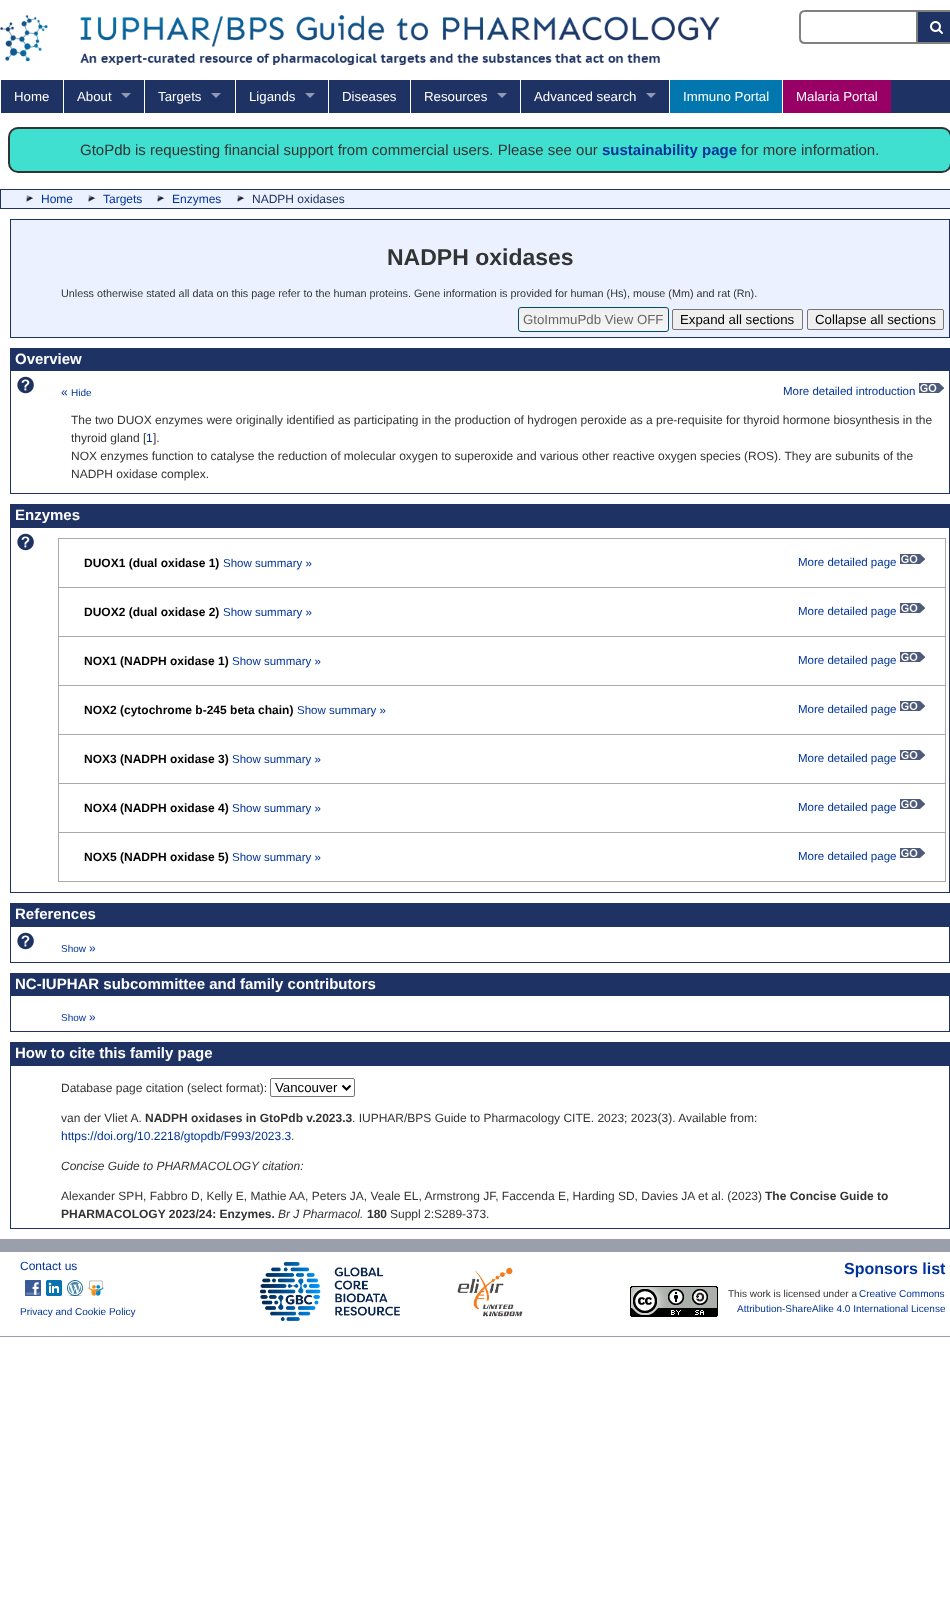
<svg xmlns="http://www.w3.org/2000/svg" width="950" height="1601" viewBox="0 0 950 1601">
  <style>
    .t1 { font: 13.25px Liberation Sans; fill: #fff; }
    .t2 { font: 15px Liberation Sans; fill: #333; }
    .t3 { font: bold 15px Liberation Sans; fill: #039; }
    .t4 { font: 12px Liberation Sans; fill: #039; }
    .t5 { font: 12px Liberation Sans; fill: #1e3363; }
    .t6 { font: bold 23px Liberation Sans; fill: #333; }
    .t7 { font: 10.8px Liberation Sans; fill: #333; }
    .t8 { font: 13.25px Liberation Sans; fill: #666; }
    .t9 { font: 13.25px Liberation Sans; fill: #000; }
    .t10 { font: bold 15px Liberation Sans; fill: #fff; }
    .t11 { font: 10px Liberation Sans; fill: #039; }
    .t12 { font: 11.5px Liberation Sans; fill: #039; }
    .t13 { font: 12px Liberation Sans; fill: #333; }
    .t14 { font: bold 12px Liberation Sans; fill: #000; }
    .t15 { font: bold 12px Liberation Sans; fill: #333; }
    .t16 { font: italic 12px Liberation Sans; fill: #333; }
    .t17 { font: bold 16px Liberation Sans; fill: #039; }
    .t18 { font: 10px Liberation Sans; fill: #333; }
  </style>
  <defs>
    <clipPath id="clip1"><rect x="518" y="307" width="151" height="25" rx="3"/></clipPath>
    <linearGradient id="g1" gradientUnits="userSpaceOnUse" x1="594" y1="308" x2="594" y2="331"><stop offset="0" stop-color="#eee"/><stop offset="1" stop-color="#f5f5f5"/></linearGradient>
  </defs>
  <rect width="100%" height="100%" fill="#fff"/>
  <image x="0" y="15" width="720" height="50" href="images/1.png"/>
  <path d="M805 11H917V43H805C802 43 800 41 800 38V16C800 13 802 11 805 11Z" fill="none" stroke="#808080" stroke-width="2"/>
  <rect x="918" y="12" width="32" height="30" fill="#1e3363"/>
  <path d="M918 10H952C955 10 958 13 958 16V38C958 41 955 44 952 44H918ZM918 12H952C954 12 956 14 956 16V38C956 40 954 42 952 42H918Z" fill="#808080" fill-rule="evenodd"/>
  <image x="930" y="21" width="13" height="13" href="images/2.png"/>
  <rect x="1" y="80" width="949" height="33" fill="#1e3363"/>
  <text x="14" y="101" class="t1">Home</text>
  <rect x="63" y="80" width="1" height="33" fill="#fff"/>
  <text x="77" y="101" class="t1">About</text>
  <path d="M121 93H131L126 98Z" fill="#8f99b1"/>
  <rect x="144" y="80" width="1" height="33" fill="#fff"/>
  <text x="158" y="101" class="t1">Targets</text>
  <path d="M211 93H221L216 98Z" fill="#8f99b1"/>
  <rect x="235" y="80" width="1" height="33" fill="#fff"/>
  <text x="249" y="101" class="t1">Ligands</text>
  <path d="M305 93H315L310 98Z" fill="#8f99b1"/>
  <rect x="328" y="80" width="1" height="33" fill="#fff"/>
  <text x="342" y="101" class="t1">Diseases</text>
  <rect x="410" y="80" width="1" height="33" fill="#fff"/>
  <text x="424" y="101" class="t1">Resources</text>
  <path d="M497 93H507L502 98Z" fill="#8f99b1"/>
  <rect x="520" y="80" width="1" height="33" fill="#fff"/>
  <text x="534" y="101" class="t1">Advanced search</text>
  <path d="M646 93H656L651 98Z" fill="#8f99b1"/>
  <rect x="670" y="80" width="112" height="33" fill="#0176af"/>
  <rect x="669" y="80" width="1" height="33" fill="#fff"/>
  <text x="683" y="101" class="t1">Immuno Portal</text>
  <rect x="783" y="80" width="108" height="33" fill="#906"/>
  <rect x="782" y="80" width="1" height="33" fill="#fff"/>
  <text x="796" y="101" class="t1">Malaria Portal</text>
  <rect x="9" y="128" width="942" height="44" rx="9" fill="#40e0d0" stroke="#333" stroke-width="2"/>
  <text x="80" y="155" class="t2">GtoPdb is requesting financial support from commercial users. Please see our</text>
  <text x="602" y="155" class="t3">sustainability page</text>
  <text x="741" y="155" class="t2">for more information.</text>
  <rect x="0.5" y="189.5" width="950" height="19" fill="#ebf1ff" stroke="#1e3363"/>
  <image x="26" y="195" width="8" height="7" href="images/3.png"/>
  <text x="41" y="203" class="t4">Home</text>
  <image x="88" y="195" width="8" height="7" href="images/3.png"/>
  <text x="103" y="203" class="t4">Targets</text>
  <image x="157" y="195" width="8" height="7" href="images/3.png"/>
  <text x="172" y="203" class="t4">Enzymes</text>
  <image x="237" y="195" width="8" height="7" href="images/3.png"/>
  <text x="252" y="203" class="t5">NADPH oxidases</text>
  <rect x="10.5" y="219.5" width="939" height="118" fill="#ebf1ff" stroke="#1e3363"/>
  <text x="387" y="265" class="t6">NADPH oxidases</text>
  <text x="61" y="297" class="t7">Unless otherwise stated all data on this page refer to the human proteins. Gene information is provided for human (Hs), mouse (Mm) and rat (Rn).</text>
  <g clip-path="url(#clip1)">
    <rect x="518" y="308" width="151" height="23" fill="url(#g1)"/>
  </g>
  <rect x="518.5" y="307.5" width="150" height="24" rx="2.5" fill="none" stroke="#024c63"/>
  <text x="523" y="324" class="t8">GtoImmuPdb View OFF</text>
  <rect x="672.5" y="309.5" width="130" height="20" rx="1.5" fill="#efefef" stroke="#767676"/>
  <text x="680" y="324" class="t9">Expand all sections</text>
  <rect x="807.5" y="309.5" width="136" height="20" rx="1.5" fill="#efefef" stroke="#767676"/>
  <text x="815" y="324" class="t9">Collapse all sections</text>
  <rect x="10" y="348" width="940" height="22" fill="#1e3363"/>
  <text x="15" y="364" class="t10">Overview</text>
  <rect x="10.5" y="370.5" width="939" height="123" fill="none" stroke="#1e3363"/>
  <image x="17" y="376" width="17" height="18" href="images/4.png"/>
  <text x="61" y="396" class="t4">«</text>
  <text x="71" y="396" class="t11">Hide</text>
  <text x="783" y="395" class="t12">More detailed introduction</text>
  <image x="919" y="383" width="25" height="10" href="images/5.png"/>
  <text x="71" y="424" class="t13">The two DUOX enzymes were originally identified as participating in the production of hydrogen peroxide as a pre-requisite for thyroid hormone biosynthesis in the</text>
  <text x="71" y="442" class="t13">thyroid gland [</text>
  <text x="146" y="442" class="t4">1</text>
  <text x="153" y="442" class="t13">].</text>
  <text x="71" y="460" class="t13">NOX enzymes function to catalyse the reduction of molecular oxygen to superoxide and various other reactive oxygen species (ROS). They are subunits of the</text>
  <text x="71" y="478" class="t13">NADPH oxidase complex.</text>
  <rect x="10" y="504" width="940" height="23" fill="#1e3363"/>
  <text x="15" y="520" class="t10">Enzymes</text>
  <rect x="10.5" y="527.5" width="939" height="365" fill="none" stroke="#1e3363"/>
  <image x="17" y="533" width="17" height="18" href="images/4.png"/>
  <rect x="58" y="538" width="888" height="1" fill="#aaa"/>
  <rect x="58" y="587" width="888" height="1" fill="#aaa"/>
  <rect x="58" y="636" width="888" height="1" fill="#aaa"/>
  <rect x="58" y="685" width="888" height="1" fill="#aaa"/>
  <rect x="58" y="734" width="888" height="1" fill="#aaa"/>
  <rect x="58" y="783" width="888" height="1" fill="#aaa"/>
  <rect x="58" y="832" width="888" height="1" fill="#aaa"/>
  <rect x="945" y="832" width="1" height="50" fill="#aaa"/>
  <rect x="945" y="783" width="1" height="50" fill="#aaa"/>
  <rect x="945" y="734" width="1" height="50" fill="#aaa"/>
  <rect x="945" y="685" width="1" height="50" fill="#aaa"/>
  <rect x="945" y="636" width="1" height="50" fill="#aaa"/>
  <rect x="945" y="587" width="1" height="50" fill="#aaa"/>
  <rect x="945" y="538" width="1" height="50" fill="#aaa"/>
  <rect x="58" y="881" width="888" height="1" fill="#aaa"/>
  <rect x="58" y="832" width="1" height="50" fill="#aaa"/>
  <rect x="58" y="783" width="1" height="50" fill="#aaa"/>
  <rect x="58" y="734" width="1" height="50" fill="#aaa"/>
  <rect x="58" y="685" width="1" height="50" fill="#aaa"/>
  <rect x="58" y="636" width="1" height="50" fill="#aaa"/>
  <rect x="58" y="587" width="1" height="50" fill="#aaa"/>
  <rect x="58" y="538" width="1" height="50" fill="#aaa"/>
  <text x="84" y="567" class="t14">DUOX1 (dual oxidase 1)</text>
  <text x="223" y="567" class="t12">Show summary »</text>
  <text x="798" y="566" class="t12">More detailed page</text>
  <image x="900" y="554" width="25" height="10" href="images/5.png"/>
  <text x="84" y="616" class="t14">DUOX2 (dual oxidase 2)</text>
  <text x="223" y="616" class="t12">Show summary »</text>
  <text x="798" y="615" class="t12">More detailed page</text>
  <image x="900" y="603" width="25" height="10" href="images/5.png"/>
  <text x="84" y="665" class="t14">NOX1 (NADPH oxidase 1)</text>
  <text x="232" y="665" class="t12">Show summary »</text>
  <text x="798" y="664" class="t12">More detailed page</text>
  <image x="900" y="652" width="25" height="10" href="images/5.png"/>
  <text x="84" y="714" class="t14">NOX2 (cytochrome b-245 beta chain)</text>
  <text x="297" y="714" class="t12">Show summary »</text>
  <text x="798" y="713" class="t12">More detailed page</text>
  <image x="900" y="701" width="25" height="10" href="images/5.png"/>
  <text x="84" y="763" class="t14">NOX3 (NADPH oxidase 3)</text>
  <text x="232" y="763" class="t12">Show summary »</text>
  <text x="798" y="762" class="t12">More detailed page</text>
  <image x="900" y="750" width="25" height="10" href="images/5.png"/>
  <text x="84" y="812" class="t14">NOX4 (NADPH oxidase 4)</text>
  <text x="232" y="812" class="t12">Show summary »</text>
  <text x="798" y="811" class="t12">More detailed page</text>
  <image x="900" y="799" width="25" height="10" href="images/5.png"/>
  <text x="84" y="861" class="t14">NOX5 (NADPH oxidase 5)</text>
  <text x="232" y="861" class="t12">Show summary »</text>
  <text x="798" y="860" class="t12">More detailed page</text>
  <image x="900" y="848" width="25" height="10" href="images/5.png"/>
  <rect x="10" y="903" width="940" height="23" fill="#1e3363"/>
  <text x="15" y="919" class="t10">References</text>
  <rect x="10.5" y="926.5" width="939" height="36" fill="none" stroke="#1e3363"/>
  <image x="17" y="932" width="17" height="18" href="images/4.png"/>
  <text x="61" y="952" class="t11">Show</text>
  <text x="89" y="952" class="t4">»</text>
  <rect x="10" y="973" width="940" height="22" fill="#1e3363"/>
  <text x="15" y="989" class="t10">NC-IUPHAR subcommittee and family contributors</text>
  <rect x="10.5" y="995.5" width="939" height="36" fill="none" stroke="#1e3363"/>
  <text x="61" y="1021" class="t11">Show</text>
  <text x="89" y="1021" class="t4">»</text>
  <rect x="10" y="1042" width="940" height="23" fill="#1e3363"/>
  <text x="15" y="1058" class="t10">How to cite this family page</text>
  <rect x="10.5" y="1065.5" width="939" height="163" fill="none" stroke="#1e3363"/>
  <text x="61" y="1092" class="t13">Database page citation (select format):</text>
  <rect x="270.5" y="1078.5" width="84" height="18" rx="1.5" fill="none" stroke="#767676"/>
  <path d="M342.5 1085.5L346.5 1089.5L350.5 1085.5" fill="none" stroke="#000" stroke-width="2"/>
  <text x="275" y="1092" class="t9">Vancouver</text>
  <text x="61" y="1122" class="t13">van der Vliet A.</text>
  <text x="145" y="1122" class="t15">NADPH oxidases in GtoPdb v.2023.3</text>
  <text x="352" y="1122" class="t13">. IUPHAR/BPS Guide to Pharmacology CITE. 2023; 2023(3). Available from:</text>
  <text x="61" y="1140" class="t4">https://doi.org/10.2218/gtopdb/F993/2023.3</text>
  <text x="291" y="1140" class="t13">.</text>
  <text x="61" y="1170" class="t16">Concise Guide to PHARMACOLOGY citation:</text>
  <text x="61" y="1200" class="t13">Alexander SPH, Fabbro D, Kelly E, Mathie AA, Peters JA, Veale EL, Armstrong JF, Faccenda E, Harding SD, Davies JA et al. (2023)</text>
  <text x="765" y="1200" class="t15">The Concise Guide to</text>
  <text x="61" y="1218" class="t15">PHARMACOLOGY 2023/24: Enzymes.</text>
  <text x="278" y="1218" class="t16">Br J Pharmacol.</text>
  <text x="367" y="1218" class="t15">180</text>
  <text x="390" y="1218" class="t13">Suppl 2:S289-373.</text>
  <rect x="0" y="1239" width="950" height="13" fill="#9b9fab"/>
  <rect x="0" y="1336" width="950" height="1" fill="#9b9fab"/>
  <text x="20" y="1270" class="t4">Contact us</text>
  <image x="25" y="1280" width="16" height="16" href="images/6.png"/>
  <image x="46" y="1280" width="16" height="16" href="images/7.png"/>
  <image x="67" y="1280" width="16" height="16" href="images/8.png"/>
  <image x="88" y="1280" width="16" height="16" href="images/9.png"/>
  <text x="20" y="1315" class="t11">Privacy and Cookie Policy</text>
  <image x="260" y="1262" width="140" height="59" href="images/10.png"/>
  <image x="457" y="1267" width="66" height="50" href="images/11.png"/>
  <text x="844" y="1274" class="t17">Sponsors list</text>
  <image x="630" y="1286" width="88" height="31" href="images/12.png"/>
  <text x="728" y="1297" class="t18">This work is licensed under a</text>
  <text x="859" y="1297" class="t11">Creative Commons</text>
  <text x="737" y="1312" class="t11">Attribution-ShareAlike 4.0 International License</text>
</svg>
